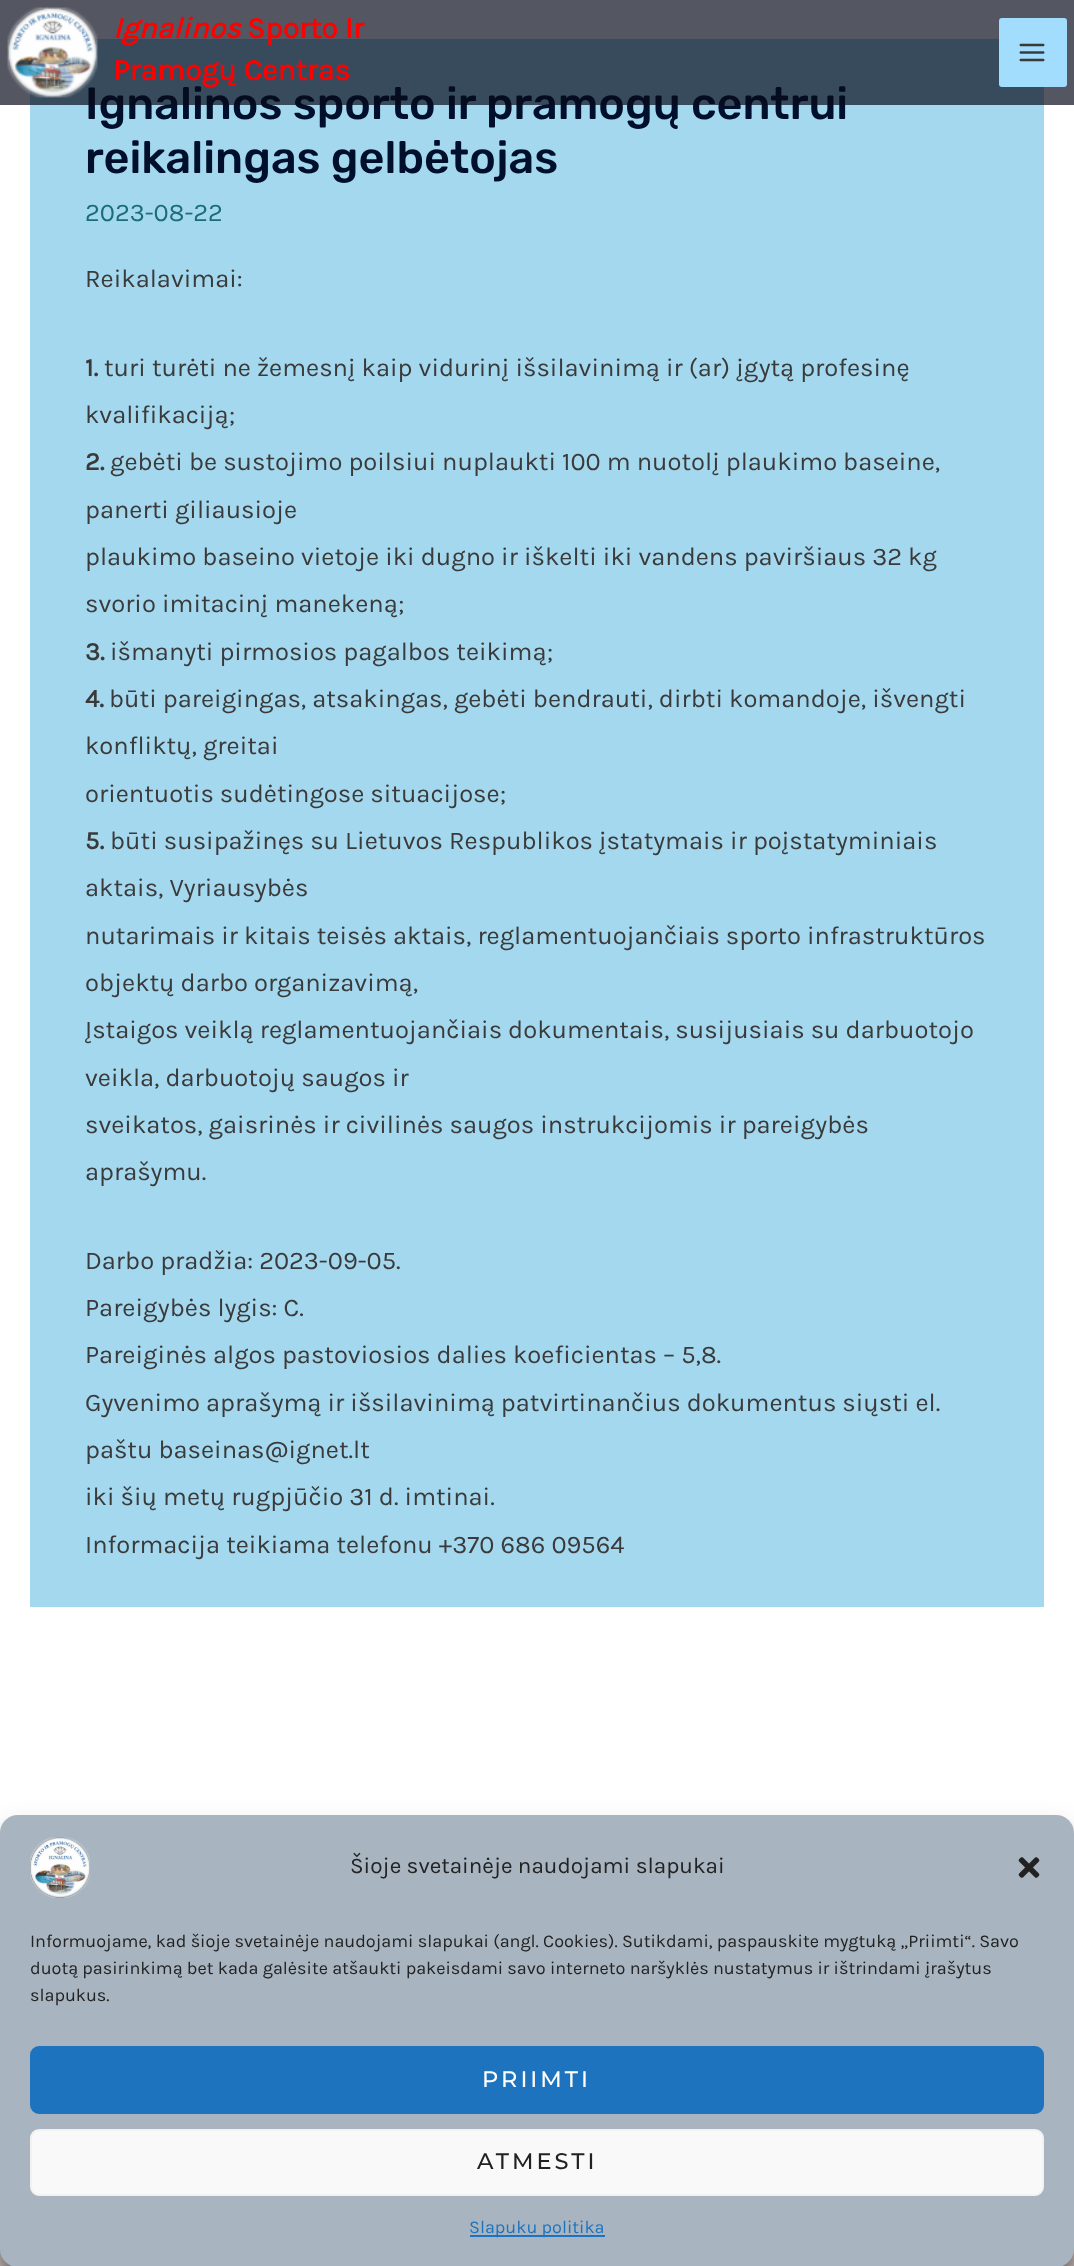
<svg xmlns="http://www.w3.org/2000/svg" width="1074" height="2266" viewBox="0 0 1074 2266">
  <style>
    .t1 { font: 300 45px Rubik; fill: #000f2b; }
    .t2 { font: italic bold 30px Karla; fill: #f00; }
    .t3 { font: bold 30px Karla; fill: #f00; }
    .t4 { font: 25.5px Karla; fill: #1a6c7a; }
    .t5 { font: 25.5px Karla; fill: #3a3a3a; }
    .t6 { font: bold 25.5px Karla; fill: #3a3a3a; }
    .t7 { font: 22.5px Karla; fill: #222; }
    .t8 { font: 18px Karla; fill: #222; }
    .t9 { font: 100 22.5px Montserrat; letter-spacing: 3px; fill: #fff; }
    .t10 { font: 100 22.5px Montserrat; letter-spacing: 3px; fill: #222; }
    .t11 { font: 18px Karla; fill: #1e73be; }
  </style>
  <rect width="100%" height="100%" fill="#fff"/>
  <rect x="30" y="39" width="1014" height="1568" fill="#a4d8ee"/>
  <text x="85" y="119" class="t1">Ignalinos sporto ir pramogų centrui</text>
  <rect x="0" y="0" width="1074" height="105" fill="#070b1cb0"/>
  <image x="7" y="7" width="91" height="91" href="images/1.png"/>
  <text x="113" y="38" class="t2">Ignalinos</text>
  <text x="247" y="38" class="t3">Sporto Ir</text>
  <text x="113" y="80" class="t3">Pramogų Centras</text>
  <rect x="999" y="18" width="68" height="69" rx="3" fill="#a2ddfe"/>
  <image x="1019" y="43" width="26" height="19" href="images/2.png"/>
  <text x="85" y="173" class="t1">reikalingas gelbėtojas</text>
  <text x="85" y="221" class="t4">2023-08-22</text>
  <text x="85" y="287" class="t5">Reikalavimai:</text>
  <text x="85" y="376" class="t6">1.</text>
  <text x="104" y="376" class="t5">turi turėti ne žemesnį kaip vidurinį išsilavinimą ir (ar) įgytą profesinę</text>
  <text x="85" y="423" class="t5">kvalifikaciją;</text>
  <text x="85" y="470" class="t6">2.</text>
  <text x="110" y="470" class="t5">gebėti be sustojimo poilsiui nuplaukti 100 m nuotolį plaukimo baseine,</text>
  <text x="85" y="518" class="t5">panerti giliausioje</text>
  <text x="85" y="565" class="t5">plaukimo baseino vietoje iki dugno ir iškelti iki vandens paviršiaus 32 kg</text>
  <text x="85" y="612" class="t5">svorio imitacinį manekeną;</text>
  <text x="85" y="660" class="t6">3.</text>
  <text x="110" y="660" class="t5">išmanyti pirmosios pagalbos teikimą;</text>
  <text x="85" y="707" class="t6">4.</text>
  <text x="109" y="707" class="t5">būti pareigingas, atsakingas, gebėti bendrauti, dirbti komandoje, išvengti</text>
  <text x="85" y="754" class="t5">konfliktų, greitai</text>
  <text x="85" y="802" class="t5">orientuotis sudėtingose situacijose;</text>
  <text x="85" y="849" class="t6">5.</text>
  <text x="110" y="849" class="t5">būti susipažinęs su Lietuvos Respublikos įstatymais ir poįstatyminiais</text>
  <text x="85" y="896" class="t5">aktais, Vyriausybės</text>
  <text x="85" y="944" class="t5">nutarimais ir kitais teisės aktais, reglamentuojančiais sporto infrastruktūros</text>
  <text x="85" y="991" class="t5">objektų darbo organizavimą,</text>
  <text x="85" y="1038" class="t5">Įstaigos veiklą reglamentuojančiais dokumentais, susijusiais su darbuotojo</text>
  <text x="85" y="1086" class="t5">veikla, darbuotojų saugos ir</text>
  <text x="85" y="1133" class="t5">sveikatos, gaisrinės ir civilinės saugos instrukcijomis ir pareigybės</text>
  <text x="85" y="1180" class="t5">aprašymu.</text>
  <text x="85" y="1269" class="t5">Darbo pradžia: 2023-09-05.</text>
  <text x="85" y="1316" class="t5">Pareigybės lygis: C.</text>
  <text x="85" y="1363" class="t5">Pareiginės algos pastoviosios dalies koeficientas – 5,8.</text>
  <text x="85" y="1411" class="t5">Gyvenimo aprašymą ir išsilavinimą patvirtinančius dokumentus siųsti el.</text>
  <text x="85" y="1458" class="t5">paštu baseinas@ignet.lt</text>
  <text x="85" y="1505" class="t5">iki šių metų rugpjūčio 31 d. imtinai.</text>
  <text x="85" y="1553" class="t5">Informacija teikiama telefonu +370 686 09564</text>
  <rect x="0" y="2249" width="1074" height="17" fill="#c2b5b5"/>
  <rect x="0" y="1824" width="1074" height="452" rx="18" fill="#0000003b" filter="blur(4.5px)"/>
  <rect x="0" y="1830" width="1074" height="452" rx="18" fill="#00000030" filter="blur(15px)"/>
  <rect x="0" y="1815" width="1074" height="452" rx="18" fill="#a8b4bf"/>
  <image x="30" y="1837" width="60" height="61" href="images/3.png"/>
  <text x="350" y="1873" class="t7">Šioje svetainėje naudojami slapukai</text>
  <image x="1018" y="1857" width="22" height="21" href="images/4.png"/>
  <text x="30" y="1947" class="t8">Informuojame, kad šioje svetainėje naudojami slapukai (angl. Cookies). Sutikdami, paspauskite mygtuką „Priimti“. Savo</text>
  <text x="30" y="1974" class="t8">duotą pasirinkimą bet kada galėsite atšaukti pakeisdami savo interneto naršyklės nustatymus ir ištrindami įrašytus</text>
  <text x="30" y="2001" class="t8">slapukus.</text>
  <rect x="31" y="2047" width="1012" height="66" rx="8" fill="#1e73be" stroke="#1e73be" stroke-width="2"/>
  <text x="482" y="2087" class="t9">PRIIMTI</text>
  <rect x="31" y="2130" width="1012" height="65" rx="8" fill="#f9f9f9" stroke="#f2f2f2" stroke-width="2"/>
  <text x="477" y="2169" class="t10">ATMESTI</text>
  <rect x="470" y="2235" width="135" height="2" fill="#1e73be"/>
  <text x="469" y="2233" class="t11">Slapuku politika</text>
</svg>
